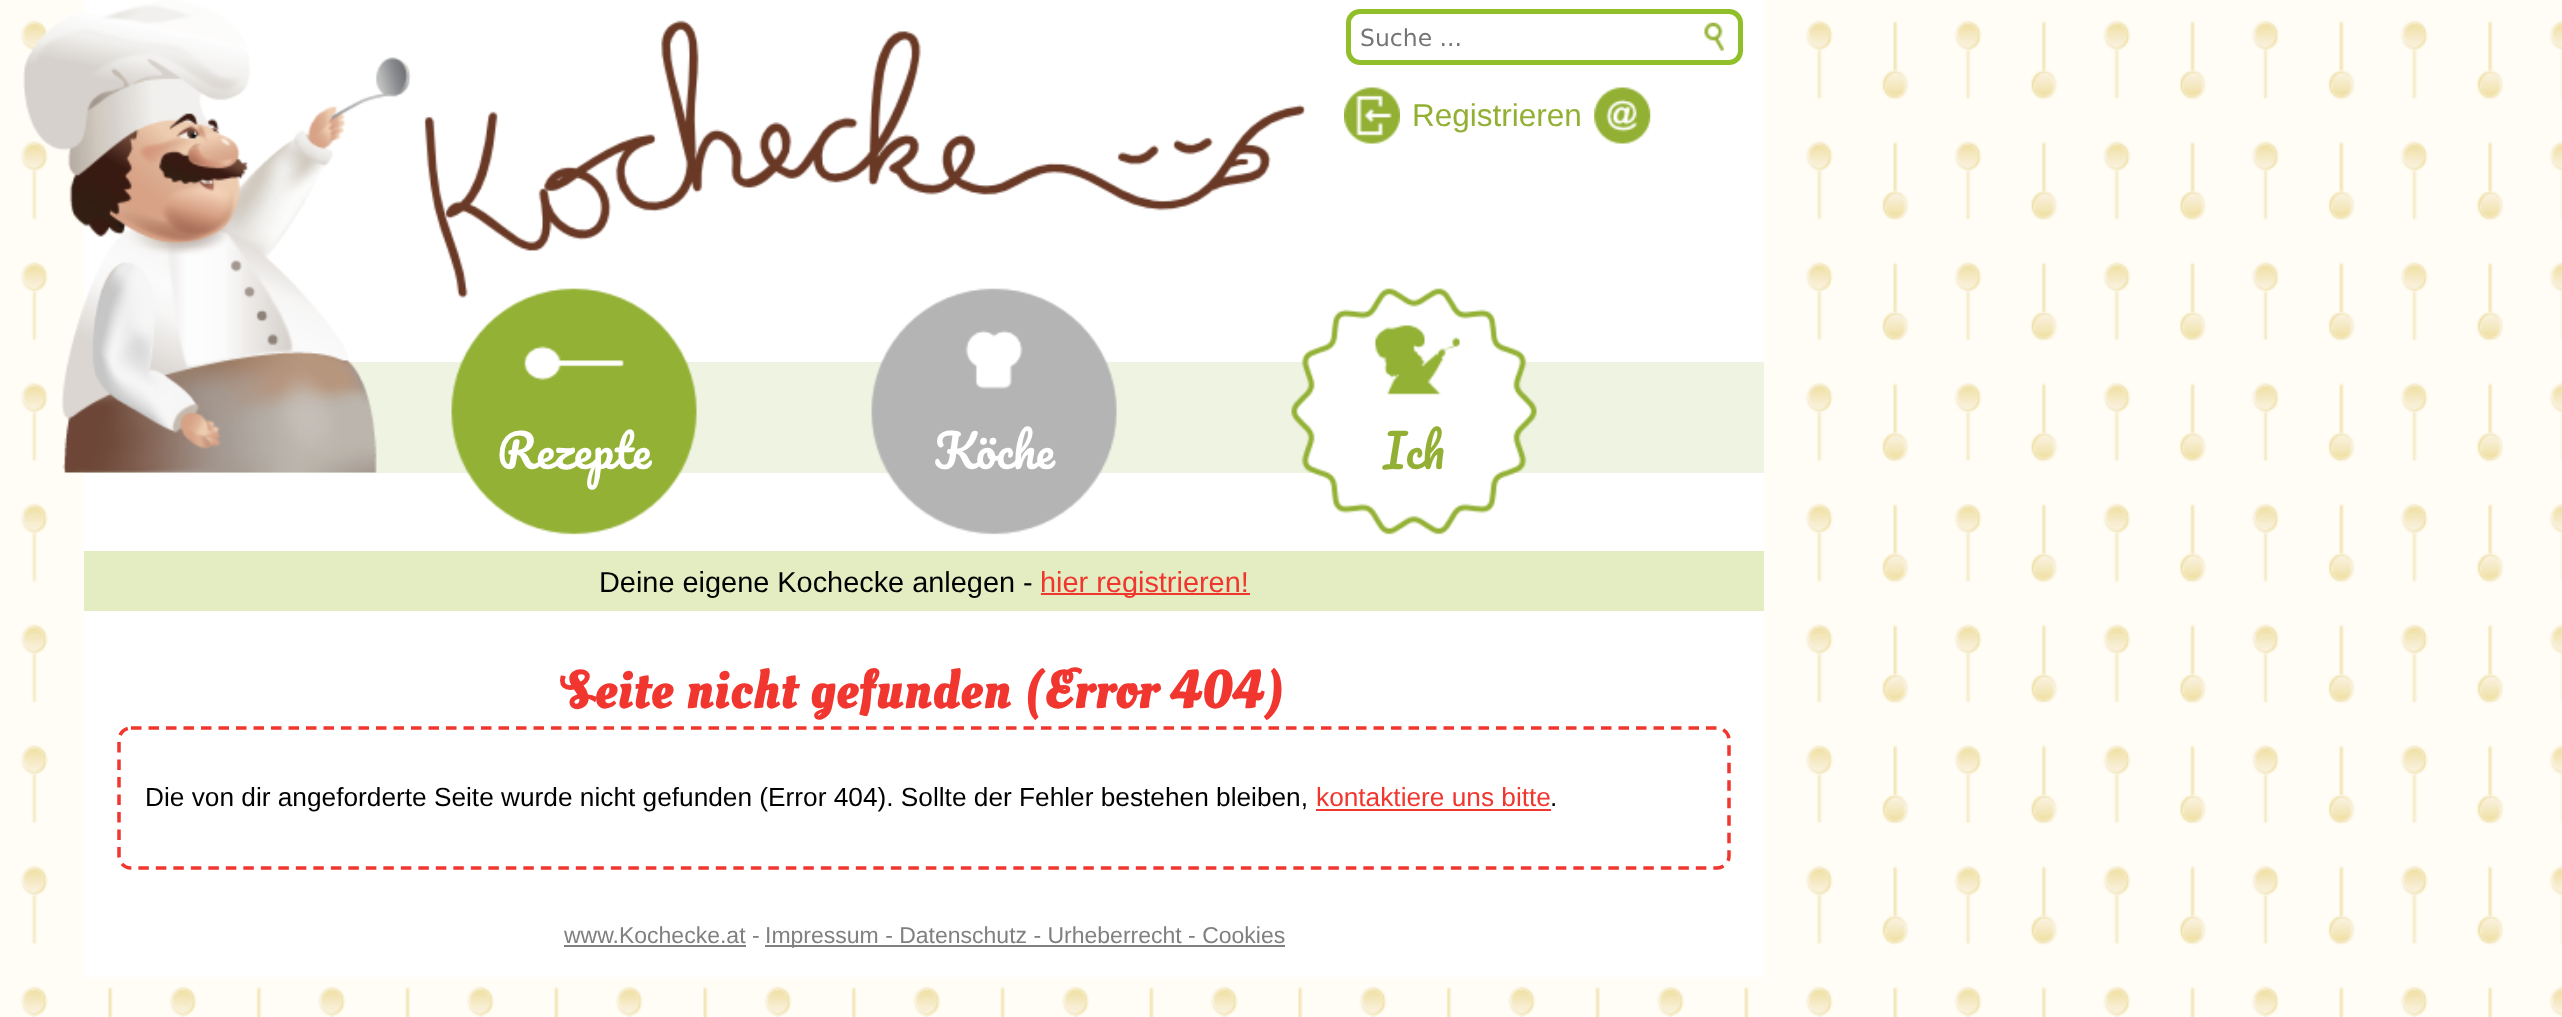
<svg xmlns="http://www.w3.org/2000/svg" width="2562" height="1017" viewBox="0 0 2562 1017">
  <style>
    .t1 { font: 23.5px DejaVu Sans; fill: #757575; }
    .t2 { font: 31.5px Liberation Sans; fill: #93b035; }
    .t3 { font: 45.5px Pacifico; fill: #fff; }
    .t4 { font: 45.5px Pacifico; fill: #93b035; }
    .t5 { font: 28.9px Liberation Sans; fill: #000; }
    .t6 { font: 28.9px Liberation Sans; fill: #f0362f; }
    .t7 { font: bold 52.5px Oleo Script Swash Caps; letter-spacing: 1.75px; fill: #f0362f; }
    .t8 { font: 26.25px Liberation Sans; fill: #000; }
    .t9 { font: 26.25px Liberation Sans; fill: #f0362f; }
    .t10 { font: 23px Liberation Sans; fill: #808080; }
  </style>
  <rect width="100%" height="100%" fill="#fff"/>
  <image x="0" y="0" width="2562" height="1017" href="images/1.png"/>
  <rect x="84" y="0" width="1680" height="977" fill="#fff"/>
  <rect x="84" y="362" width="1680" height="111" fill="#eff3e2"/>
  <image x="23" y="0" width="389" height="473" href="images/2.png"/>
  <image x="423" y="20" width="883" height="278" href="images/3.png"/>
  <rect x="1348.5" y="11.5" width="392" height="51" rx="11.5" fill="none" stroke="#90bf2a" stroke-width="5"/>
  <text x="1360" y="46" class="t1">Suche ...</text>
  <image x="1704" y="22" width="20" height="29" href="images/4.png"/>
  <image x="1344" y="87" width="56" height="57" href="images/5.png"/>
  <text x="1412" y="126" class="t2">Registrieren</text>
  <image x="1594" y="87" width="57" height="57" href="images/6.png"/>
  <image x="451" y="288" width="246" height="247" href="images/7.png"/>
  <text x="497" y="469" class="t3">Rezepte</text>
  <image x="871" y="288" width="246" height="247" href="images/8.png"/>
  <text x="934" y="469" class="t3">Köche</text>
  <image x="1291" y="288" width="246" height="247" href="images/9.png"/>
  <text x="1383" y="469" class="t4">Ich</text>
  <rect x="84" y="551" width="1680" height="60" fill="#e3edc1"/>
  <text x="599" y="592" class="t5">Deine eigene Kochecke anlegen -</text>
  <rect x="1041" y="593" width="209" height="2" fill="#f0362f"/>
  <text x="1040" y="592" class="t6">hier registrieren!</text>
  <text x="562" y="708" class="t7">Seite nicht gefunden (Error 404)</text>
  <path d="M131 728H1717C1723.5 728 1729 733.5 1729 740V856C1729 862.5 1723.5 868 1717 868H131C124.5 868 119 862.5 119 856V740C119 733.5 124.5 728 131 728Z" fill="none" stroke="#f0362f" stroke-width="3.5" stroke-dasharray="10.5 7"/>
  <text x="145" y="806" class="t8">Die von dir angeforderte Seite wurde nicht gefunden (Error 404). Sollte der Fehler bestehen bleiben,</text>
  <text x="1316" y="806" class="t9">kontaktiere uns bitte</text>
  <rect x="1316" y="809" width="235" height="2" fill="#f0362f"/>
  <text x="1550" y="806" class="t8">.</text>
  <text x="564" y="943" class="t10">www.Kochecke.at -</text>
  <rect x="564" y="945" width="182" height="2" fill="#808080"/>
  <rect x="765" y="945" width="520" height="2" fill="#808080"/>
  <text x="765" y="943" class="t10">Impressum - Datenschutz - Urheberrecht - Cookies</text>
</svg>
